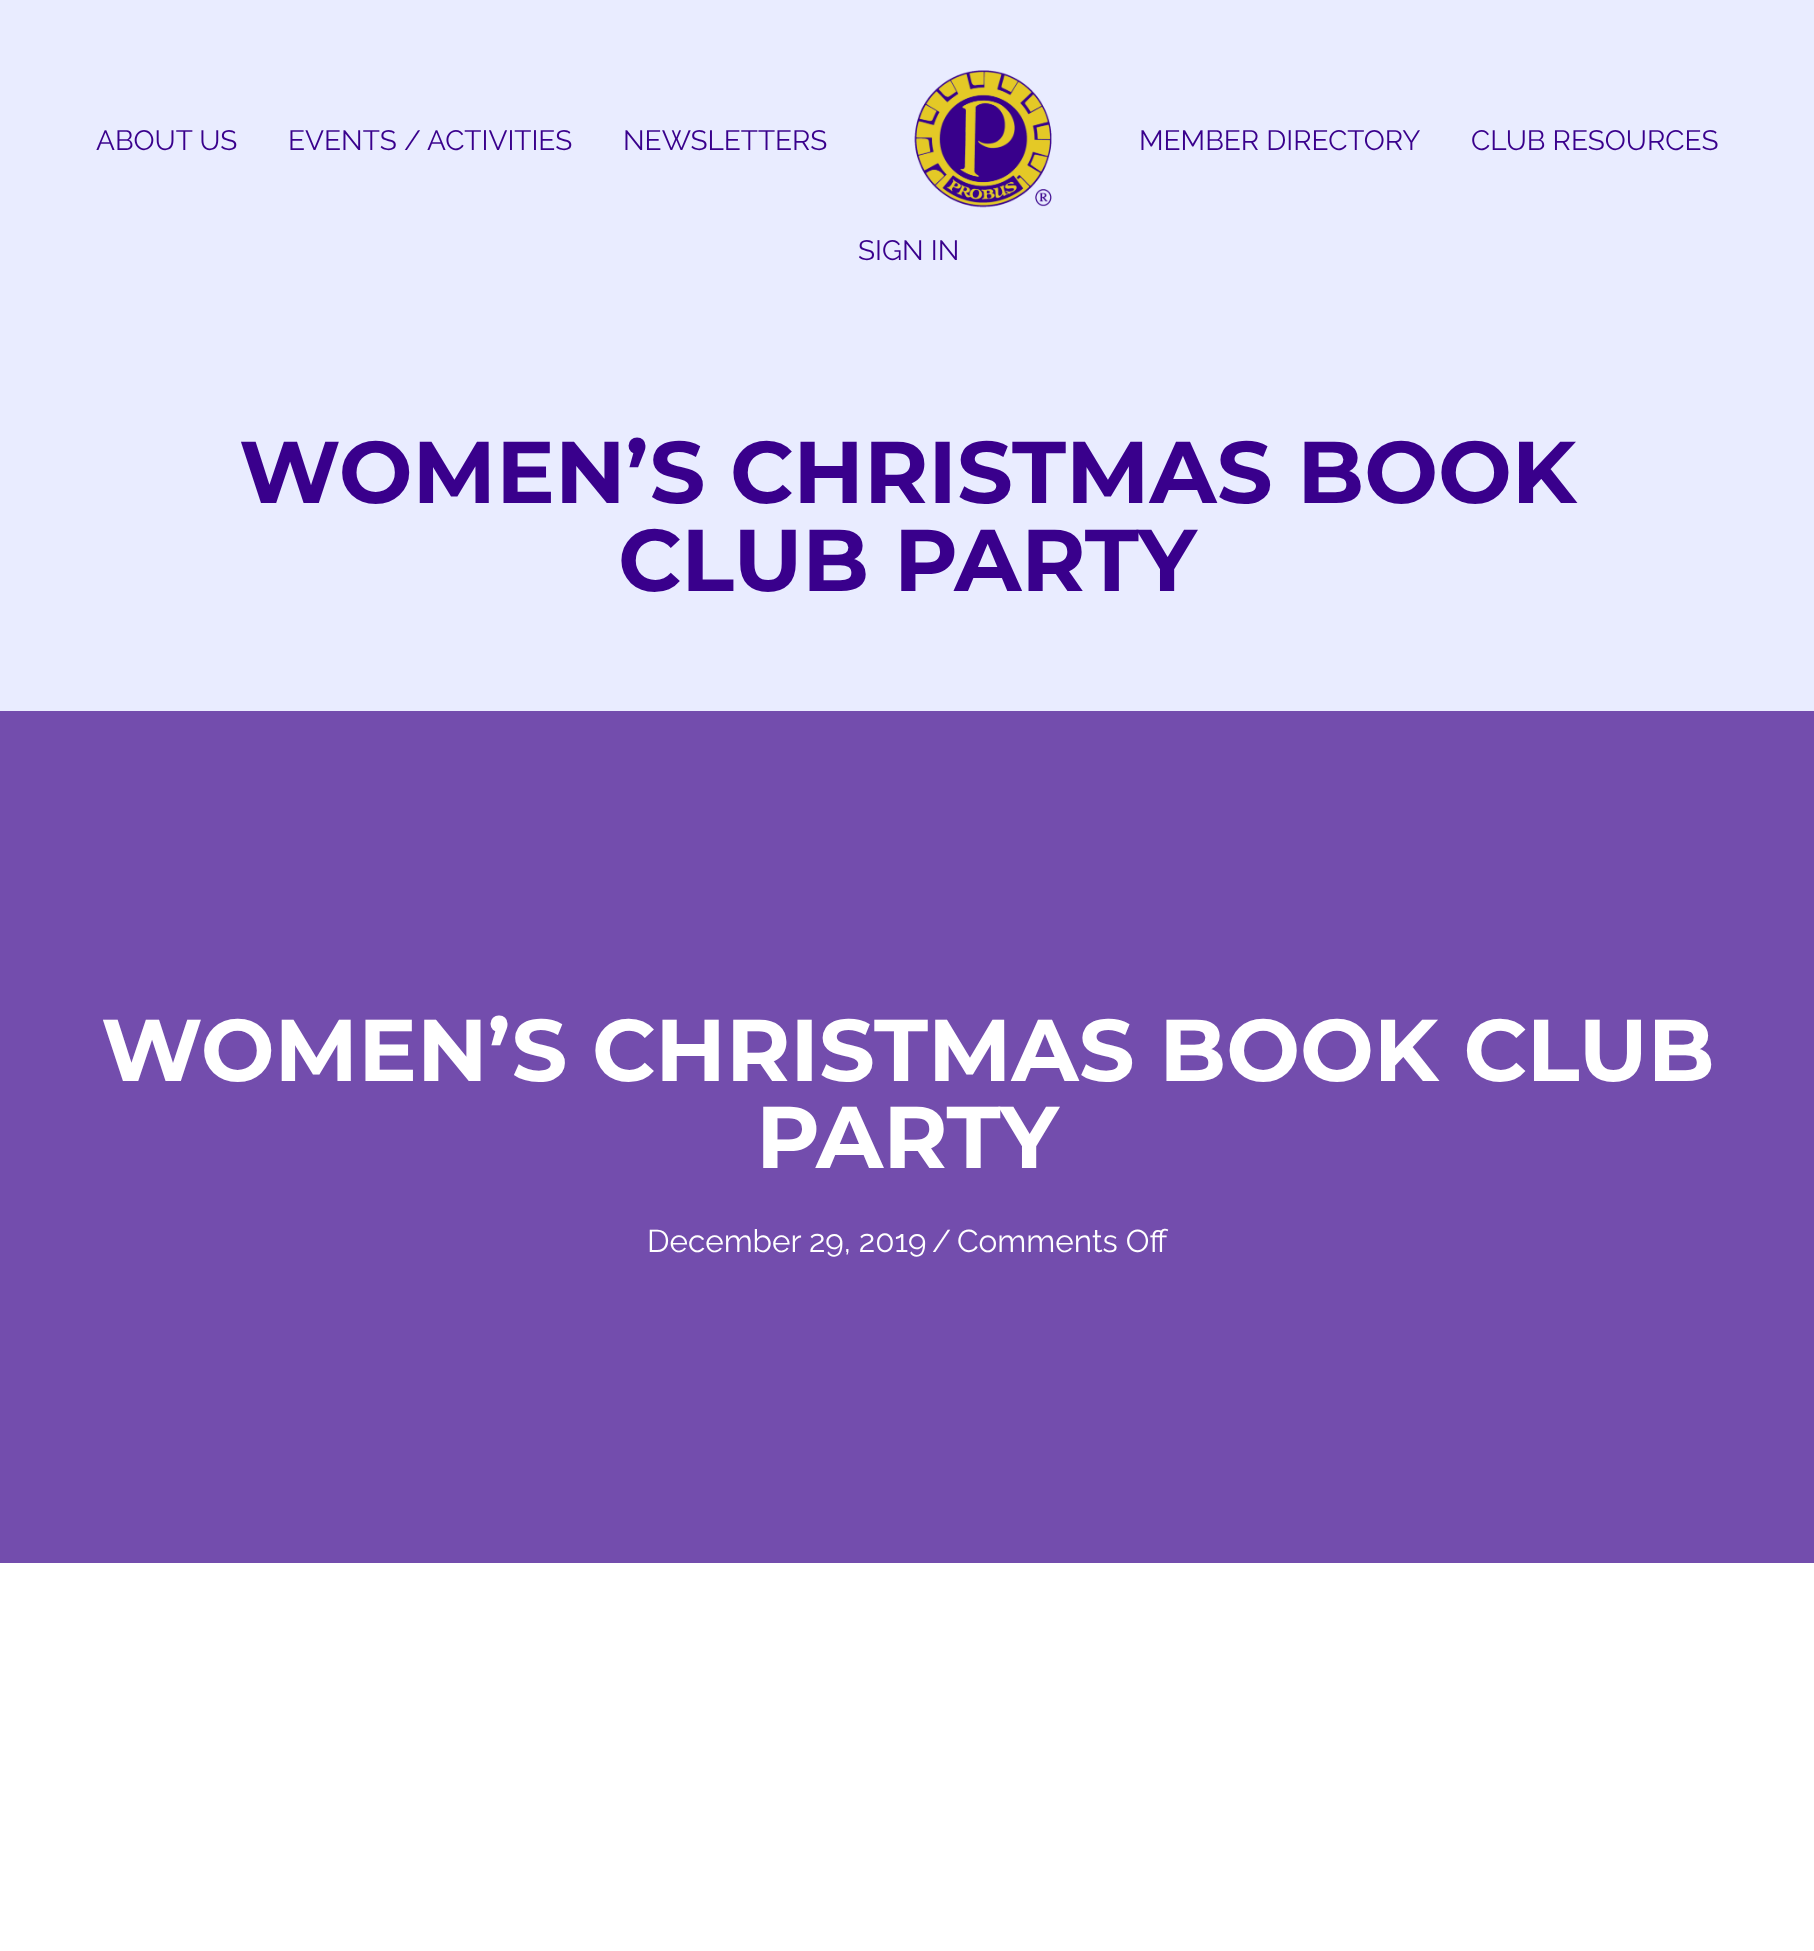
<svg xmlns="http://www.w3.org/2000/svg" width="1814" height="1951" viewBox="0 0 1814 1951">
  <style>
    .t1 { font: 28px Raleway; fill: #39008c; }
    .t2 { font: bold 87.5px Montserrat; fill: #39008c; }
    .t3 { font: bold 87.5px Montserrat; fill: #fff; }
    .t4 { font: 31.5px Raleway; fill: #fff; }
  </style>
  <rect width="100%" height="100%" fill="#fff"/>
  <rect x="0" y="0" width="1814" height="711" fill="#e9ecff"/>
  <text x="96" y="150" class="t1">ABOUT US</text>
  <text x="288" y="150" class="t1">EVENTS /</text>
  <text x="427" y="150" class="t1">ACTIVITIES</text>
  <text x="623" y="150" class="t1">NEWSLETTERS</text>
  <image x="914" y="70" width="138" height="138" href="images/1.png"/>
  <text x="1139" y="150" class="t1">MEMBER DIRECTORY</text>
  <text x="1471" y="150" class="t1">CLUB RESOURCES</text>
  <text x="858" y="260" class="t1">SIGN IN</text>
  <text x="239" y="503" class="t2">WOMEN’S CHRISTMAS BOOK</text>
  <text x="618" y="591" class="t2">CLUB PARTY</text>
  <rect x="0" y="711" width="1814" height="852" fill="#734dad"/>
  <text x="101" y="1081" class="t3">WOMEN’S CHRISTMAS BOOK CLUB</text>
  <text x="756" y="1168" class="t3">PARTY</text>
  <text x="647" y="1252" class="t4">December 29, 2019</text>
  <text x="932" y="1252" class="t4">/</text>
  <text x="957" y="1252" class="t4">Comments Off</text>
</svg>
